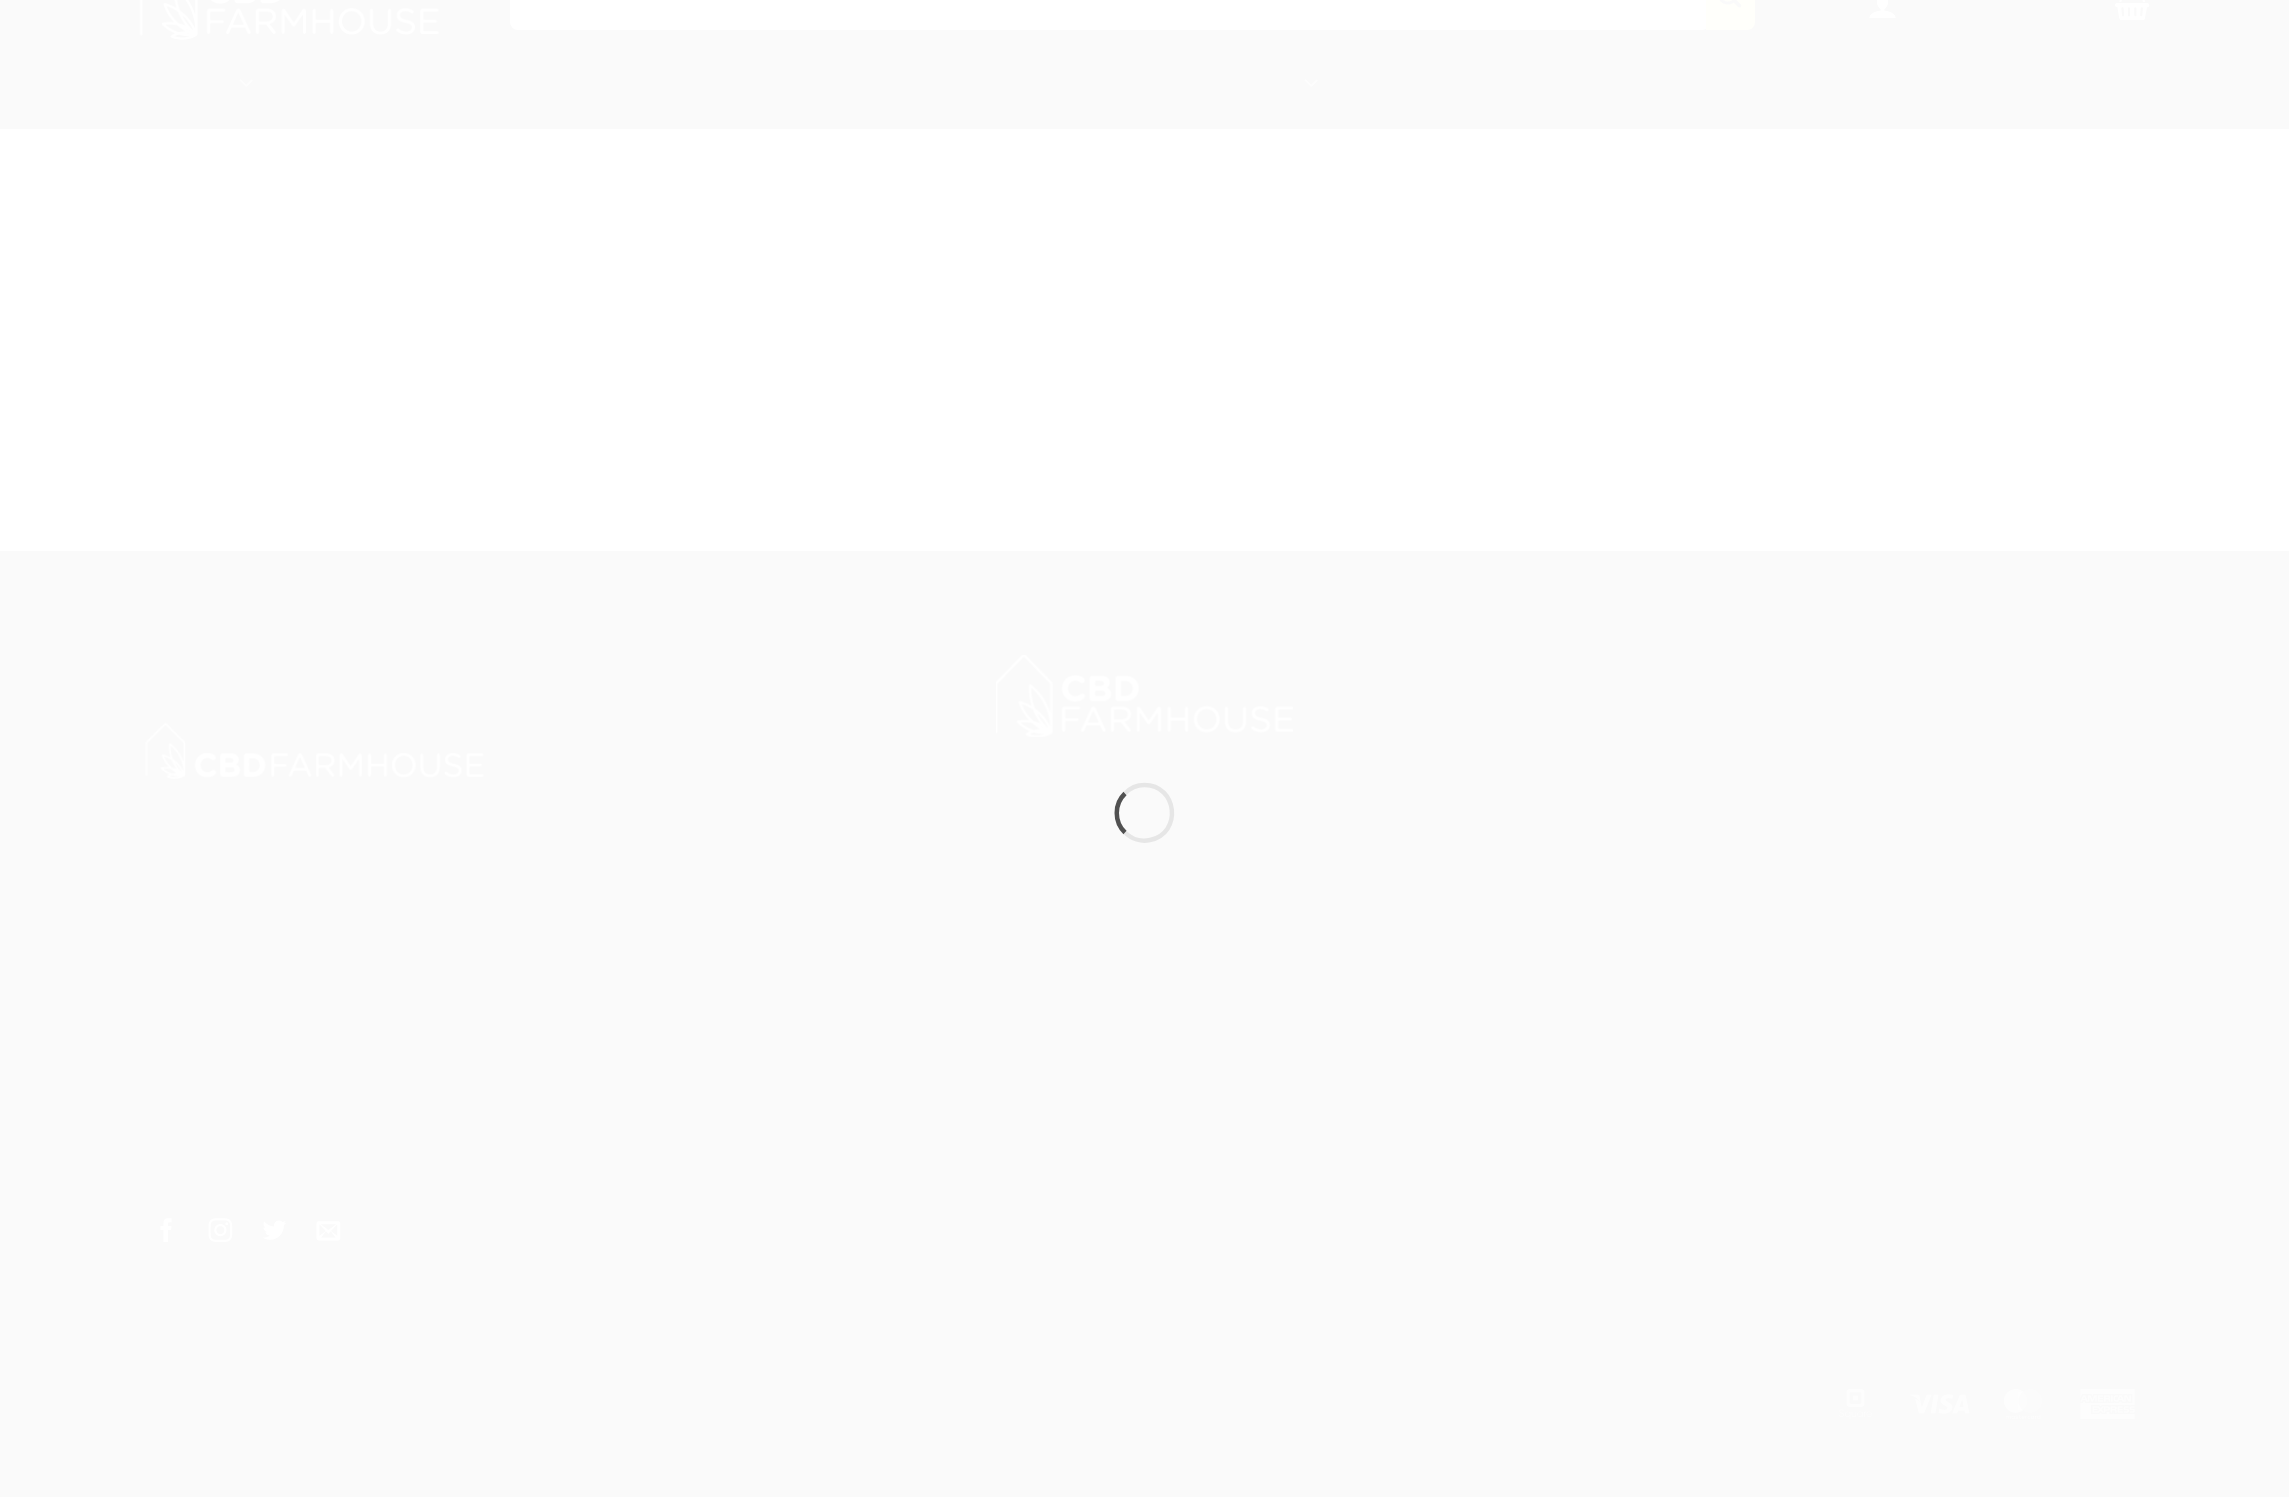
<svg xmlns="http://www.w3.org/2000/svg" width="2289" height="1497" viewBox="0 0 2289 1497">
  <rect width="100%" height="100%" fill="#fff"/>
  <rect x="0" y="0" width="2289" height="129" fill="#fafafa"/>
  <image x="139" y="0" width="301" height="40" href="images/1.png"/>
  <rect x="510" y="-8" width="1200" height="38" rx="8" fill="#fff"/>
  <path d="M1706-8H1747C1751.5-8 1755-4.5 1755 0V22C1755 26.5 1751.5 30 1747 30H1706Z" fill="#fffffb"/>
  <image x="1719" y="0" width="23" height="8" href="images/2.png"/>
  <image x="1869" y="0" width="27" height="18" href="images/3.png"/>
  <image x="2115" y="0" width="35" height="21" href="images/4.png"/>
  <image x="239" y="79" width="14" height="8" href="images/5.png"/>
  <image x="1304" y="79" width="14" height="8" href="images/5.png"/>
  <rect x="0" y="551" width="2289" height="946" fill="#fafafa"/>
  <image x="145" y="722" width="340" height="58" href="images/6.png"/>
  <image x="160" y="1218" width="12" height="24" href="images/7.png"/>
  <image x="208" y="1218" width="25" height="24" href="images/8.png"/>
  <image x="262" y="1220" width="25" height="20" href="images/9.png"/>
  <image x="316" y="1221" width="25" height="20" href="images/10.png"/>
  <image x="1839" y="1389" width="33" height="30" href="images/11.png"/>
  <image x="1910" y="1394" width="60" height="20" href="images/12.png"/>
  <image x="2003" y="1389" width="40" height="30" href="images/13.png"/>
  <image x="2080" y="1389" width="55" height="30" href="images/14.png"/>
  <image x="996" y="655" width="297" height="82" href="images/15.png"/>
  <path d="M1125 793.5C1130 788 1137 785 1144.5 785C1177.5 785 1182.5 833.5 1150 840C1141 842 1131.5 839 1125 832.5" fill="none" stroke="#00000014" stroke-width="4.5"/>
  <path d="M1125 832.5C1114 822 1114 804 1125 793.5" fill="none" stroke="#212121c7" stroke-width="4.5"/>
</svg>
